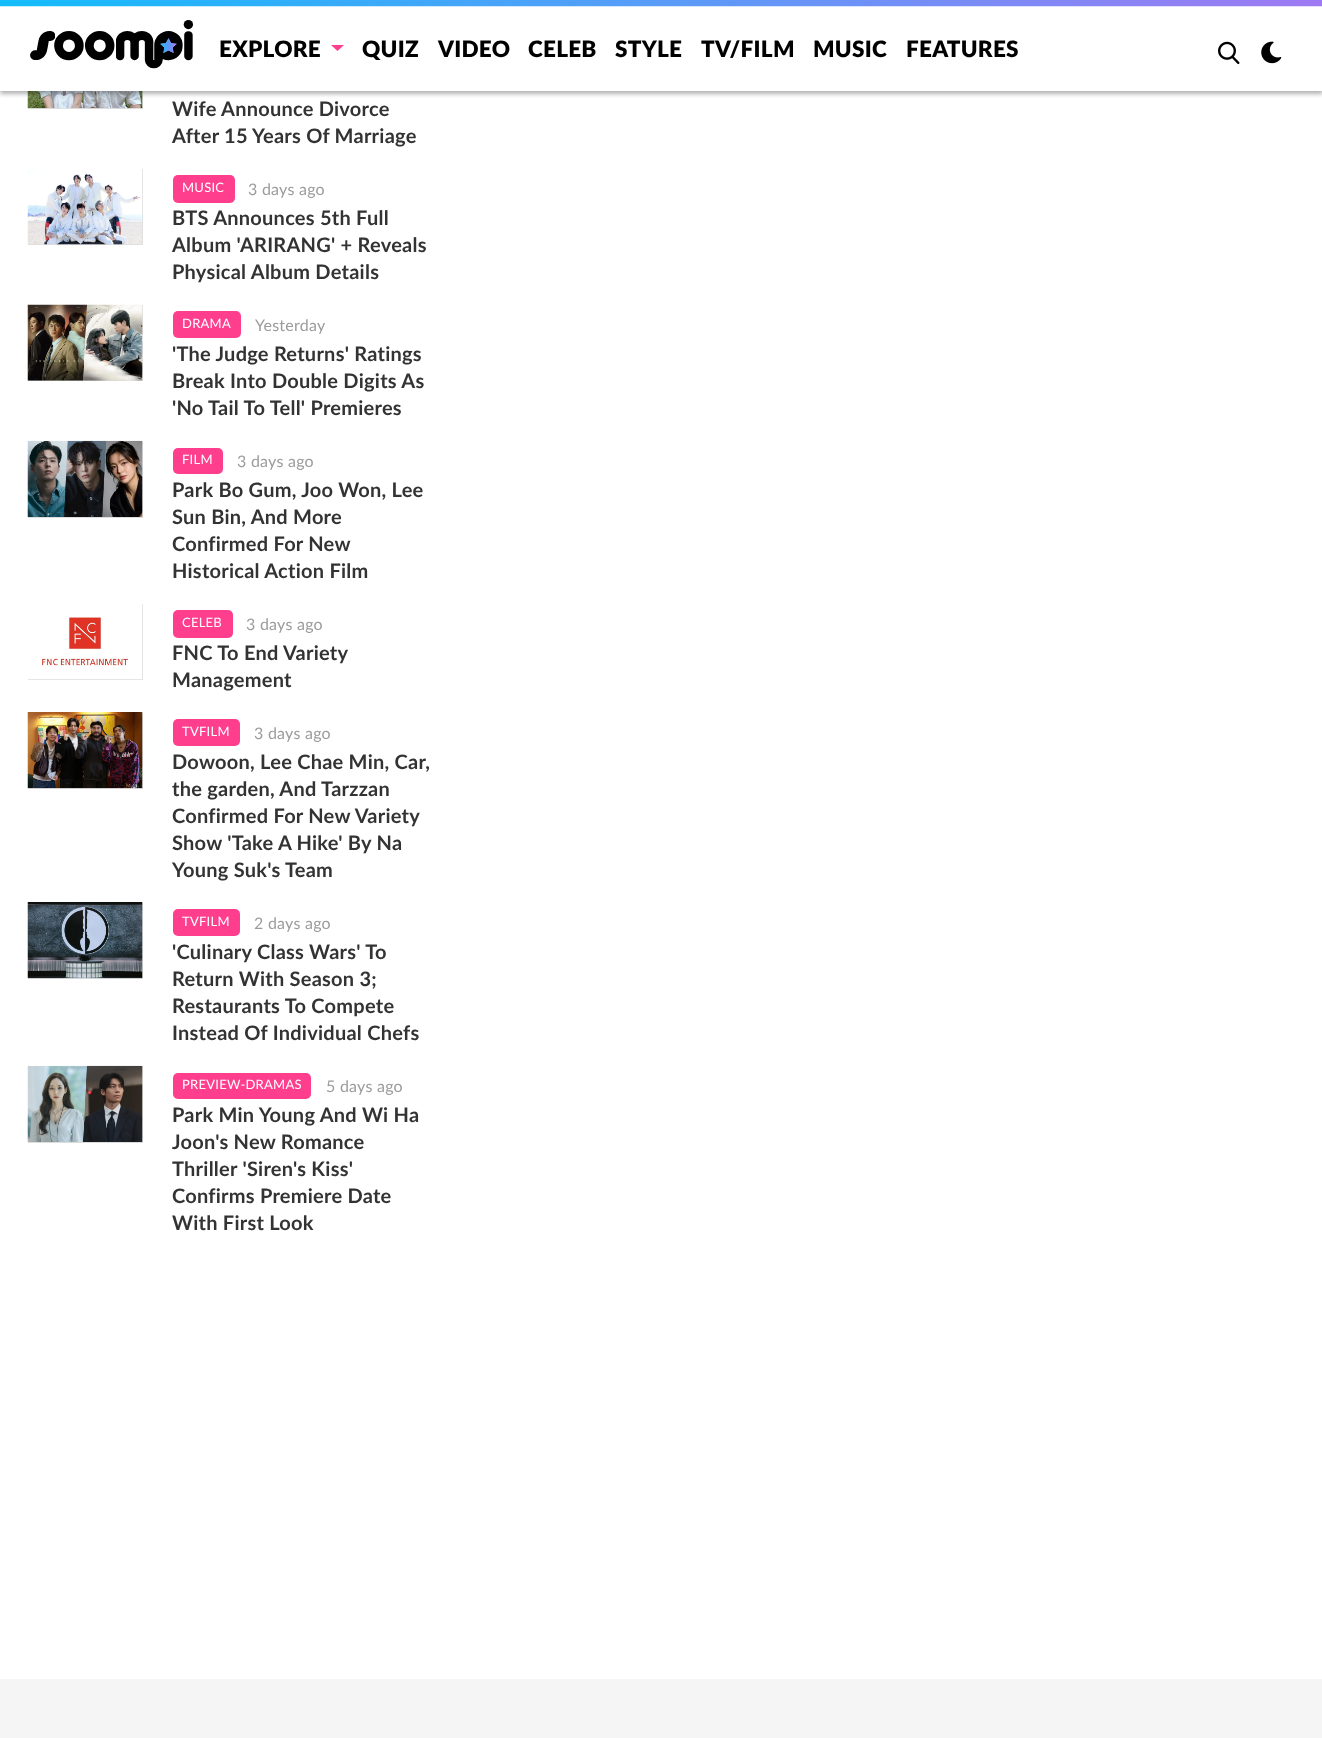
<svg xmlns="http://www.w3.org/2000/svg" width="1322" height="1738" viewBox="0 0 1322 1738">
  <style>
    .t1 { font: 900 22.5px Lato; letter-spacing: 0.25px; fill: #000; }
    .t2 { font: bold 20px Lato; letter-spacing: 0.25px; fill: #333; }
    .t3 { font: 13px Lato; letter-spacing: 0.25px; fill: #fff; }
    .t4 { font: 16px Lato; letter-spacing: 0.25px; fill: #9c9c9c; }
  </style>
  <rect width="100%" height="100%" fill="#fff"/>
  <rect x="28" y="91" width="115" height="18" fill="#ddd"/>
  <image x="27" y="91" width="116" height="18" href="images/5.png"/>
  <rect x="0" y="3" width="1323" height="91" fill="#0000004d" filter="blur(2px)"/>
  <rect x="0" y="6" width="1322" height="85" fill="#fff"/>
  <image x="0" y="0" width="1322" height="7" href="images/1.png"/>
  <image x="30" y="20" width="164" height="49" href="images/2.png"/>
  <text x="219" y="57" class="t1">EXPLORE</text>
  <path d="M331 45H344L337.5 51Z" fill="#ff3e8e"/>
  <text x="362" y="57" class="t1">QUIZ</text>
  <text x="438" y="57" class="t1">VIDEO</text>
  <text x="528" y="57" class="t1">CELEB</text>
  <text x="615" y="57" class="t1">STYLE</text>
  <text x="701" y="57" class="t1">TV/FILM</text>
  <text x="813" y="57" class="t1">MUSIC</text>
  <text x="906" y="57" class="t1">FEATURES</text>
  <image x="1218" y="41" width="22" height="24" href="images/3.png"/>
  <image x="1261" y="41" width="21" height="23" href="images/4.png"/>
  <text x="172" y="116" class="t2">Wife Announce Divorce</text>
  <text x="172" y="143" class="t2">After 15 Years Of Marriage</text>
  <rect x="28" y="169" width="115" height="76" fill="#ddd"/>
  <image x="27" y="169" width="116" height="76" href="images/6.png"/>
  <rect x="173" y="175" width="62" height="28" rx="5" fill="#ff3e8e"/>
  <text x="182" y="192" class="t3">MUSIC</text>
  <text x="248" y="195" class="t4">3 days ago</text>
  <text x="172" y="225" class="t2">BTS Announces 5th Full</text>
  <text x="172" y="252" class="t2">Album 'ARIRANG' + Reveals</text>
  <text x="172" y="279" class="t2">Physical Album Details</text>
  <rect x="28" y="305" width="115" height="76" fill="#ddd"/>
  <image x="27" y="304" width="116" height="77" href="images/7.png"/>
  <rect x="173" y="311" width="68" height="27" rx="5" fill="#ff3e8e"/>
  <text x="182" y="328" class="t3">DRAMA</text>
  <text x="255" y="331" class="t4">Yesterday</text>
  <text x="172" y="361" class="t2">'The Judge Returns' Ratings</text>
  <text x="172" y="388" class="t2">Break Into Double Digits As</text>
  <text x="172" y="415" class="t2">'No Tail To Tell' Premieres</text>
  <rect x="28" y="441" width="115" height="77" fill="#ddd"/>
  <image x="27" y="440" width="116" height="77" href="images/8.png"/>
  <rect x="173" y="448" width="50" height="26" rx="5" fill="#ff3e8e"/>
  <text x="182" y="464" class="t3">FILM</text>
  <text x="237" y="467" class="t4">3 days ago</text>
  <text x="172" y="497" class="t2">Park Bo Gum, Joo Won, Lee</text>
  <text x="172" y="524" class="t2">Sun Bin, And More</text>
  <text x="172" y="551" class="t2">Confirmed For New</text>
  <text x="172" y="578" class="t2">Historical Action Film</text>
  <rect x="28" y="604" width="115" height="76" fill="#ddd"/>
  <image x="28" y="604" width="115" height="76" href="images/9.png"/>
  <rect x="173" y="610" width="60" height="28" rx="5" fill="#ff3e8e"/>
  <text x="182" y="627" class="t3">CELEB</text>
  <text x="246" y="630" class="t4">3 days ago</text>
  <text x="172" y="660" class="t2">FNC To End Variety</text>
  <text x="172" y="687" class="t2">Management</text>
  <rect x="28" y="713" width="115" height="76" fill="#ddd"/>
  <image x="27" y="712" width="116" height="77" href="images/10.png"/>
  <rect x="173" y="719" width="67" height="27" rx="5" fill="#ff3e8e"/>
  <text x="182" y="736" class="t3">TVFILM</text>
  <text x="254" y="739" class="t4">3 days ago</text>
  <text x="172" y="769" class="t2">Dowoon, Lee Chae Min, Car,</text>
  <text x="172" y="796" class="t2">the garden, And Tarzzan</text>
  <text x="172" y="823" class="t2">Confirmed For New Variety</text>
  <text x="172" y="850" class="t2">Show 'Take A Hike' By Na</text>
  <text x="172" y="877" class="t2">Young Suk's Team</text>
  <rect x="28" y="903" width="115" height="76" fill="#ddd"/>
  <image x="27" y="902" width="116" height="77" href="images/11.png"/>
  <rect x="173" y="909" width="67" height="27" rx="5" fill="#ff3e8e"/>
  <text x="182" y="926" class="t3">TVFILM</text>
  <text x="254" y="929" class="t4">2 days ago</text>
  <text x="172" y="959" class="t2">'Culinary Class Wars' To</text>
  <text x="172" y="986" class="t2">Return With Season 3;</text>
  <text x="172" y="1013" class="t2">Restaurants To Compete</text>
  <text x="172" y="1040" class="t2">Instead Of Individual Chefs</text>
  <rect x="28" y="1066" width="115" height="77" fill="#ddd"/>
  <image x="27" y="1065" width="116" height="77" href="images/12.png"/>
  <rect x="173" y="1073" width="138" height="26" rx="5" fill="#ff3e8e"/>
  <text x="182" y="1089" class="t3">PREVIEW-DRAMAS</text>
  <text x="326" y="1092" class="t4">5 days ago</text>
  <text x="172" y="1122" class="t2">Park Min Young And Wi Ha</text>
  <text x="172" y="1149" class="t2">Joon's New Romance</text>
  <text x="172" y="1176" class="t2">Thriller 'Siren's Kiss'</text>
  <text x="172" y="1203" class="t2">Confirms Premiere Date</text>
  <text x="172" y="1230" class="t2">With First Look</text>
  <rect x="0" y="1679" width="1322" height="59" fill="#f5f5f5"/>
</svg>
